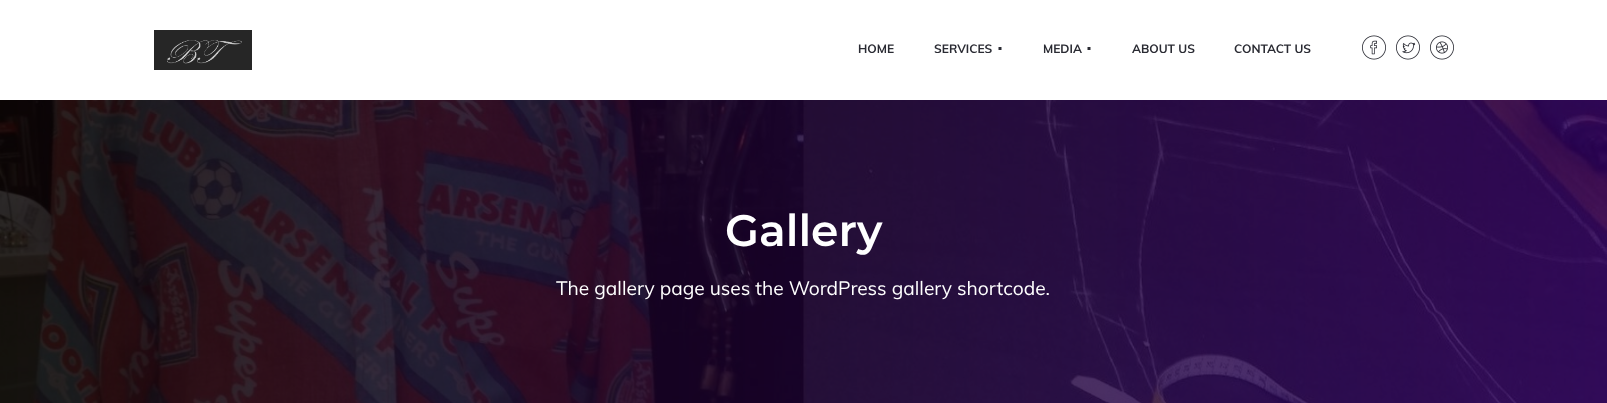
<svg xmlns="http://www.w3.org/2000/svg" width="1607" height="403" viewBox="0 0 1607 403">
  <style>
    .t1 { font: bold 12px Muli; fill: #2a2b33; }
    .t2 { font: 600 44px Montserrat; fill: #fff; }
    .t3 { font: 19.2px Muli; fill: #fff; }
  </style>
  <rect width="100%" height="100%" fill="#fff"/>
  <image x="154" y="30" width="98" height="40" href="images/1.png"/>
  <text x="858" y="53" class="t1">HOME</text>
  <text x="934" y="53" class="t1">SERVICES</text>
  <path d="M998.5 48.5H1001.5" fill="none" stroke="#2a2b33" stroke-width="3"/>
  <text x="1043" y="53" class="t1">MEDIA</text>
  <path d="M1087.5 48.5H1090.5" fill="none" stroke="#2a2b33" stroke-width="3"/>
  <text x="1132" y="53" class="t1">ABOUT US</text>
  <text x="1234" y="53" class="t1">CONTACT US</text>
  <image x="1362" y="35" width="24" height="25" href="images/2.png"/>
  <image x="1396" y="35" width="24" height="25" href="images/3.png"/>
  <image x="1430" y="35" width="24" height="25" href="images/4.png"/>
  <image x="0" y="100" width="1607" height="303" href="images/5.png"/>
  <text x="725" y="246" class="t2">Gallery</text>
  <text x="556" y="295" class="t3">The gallery page uses the WordPress gallery shortcode.</text>
</svg>
